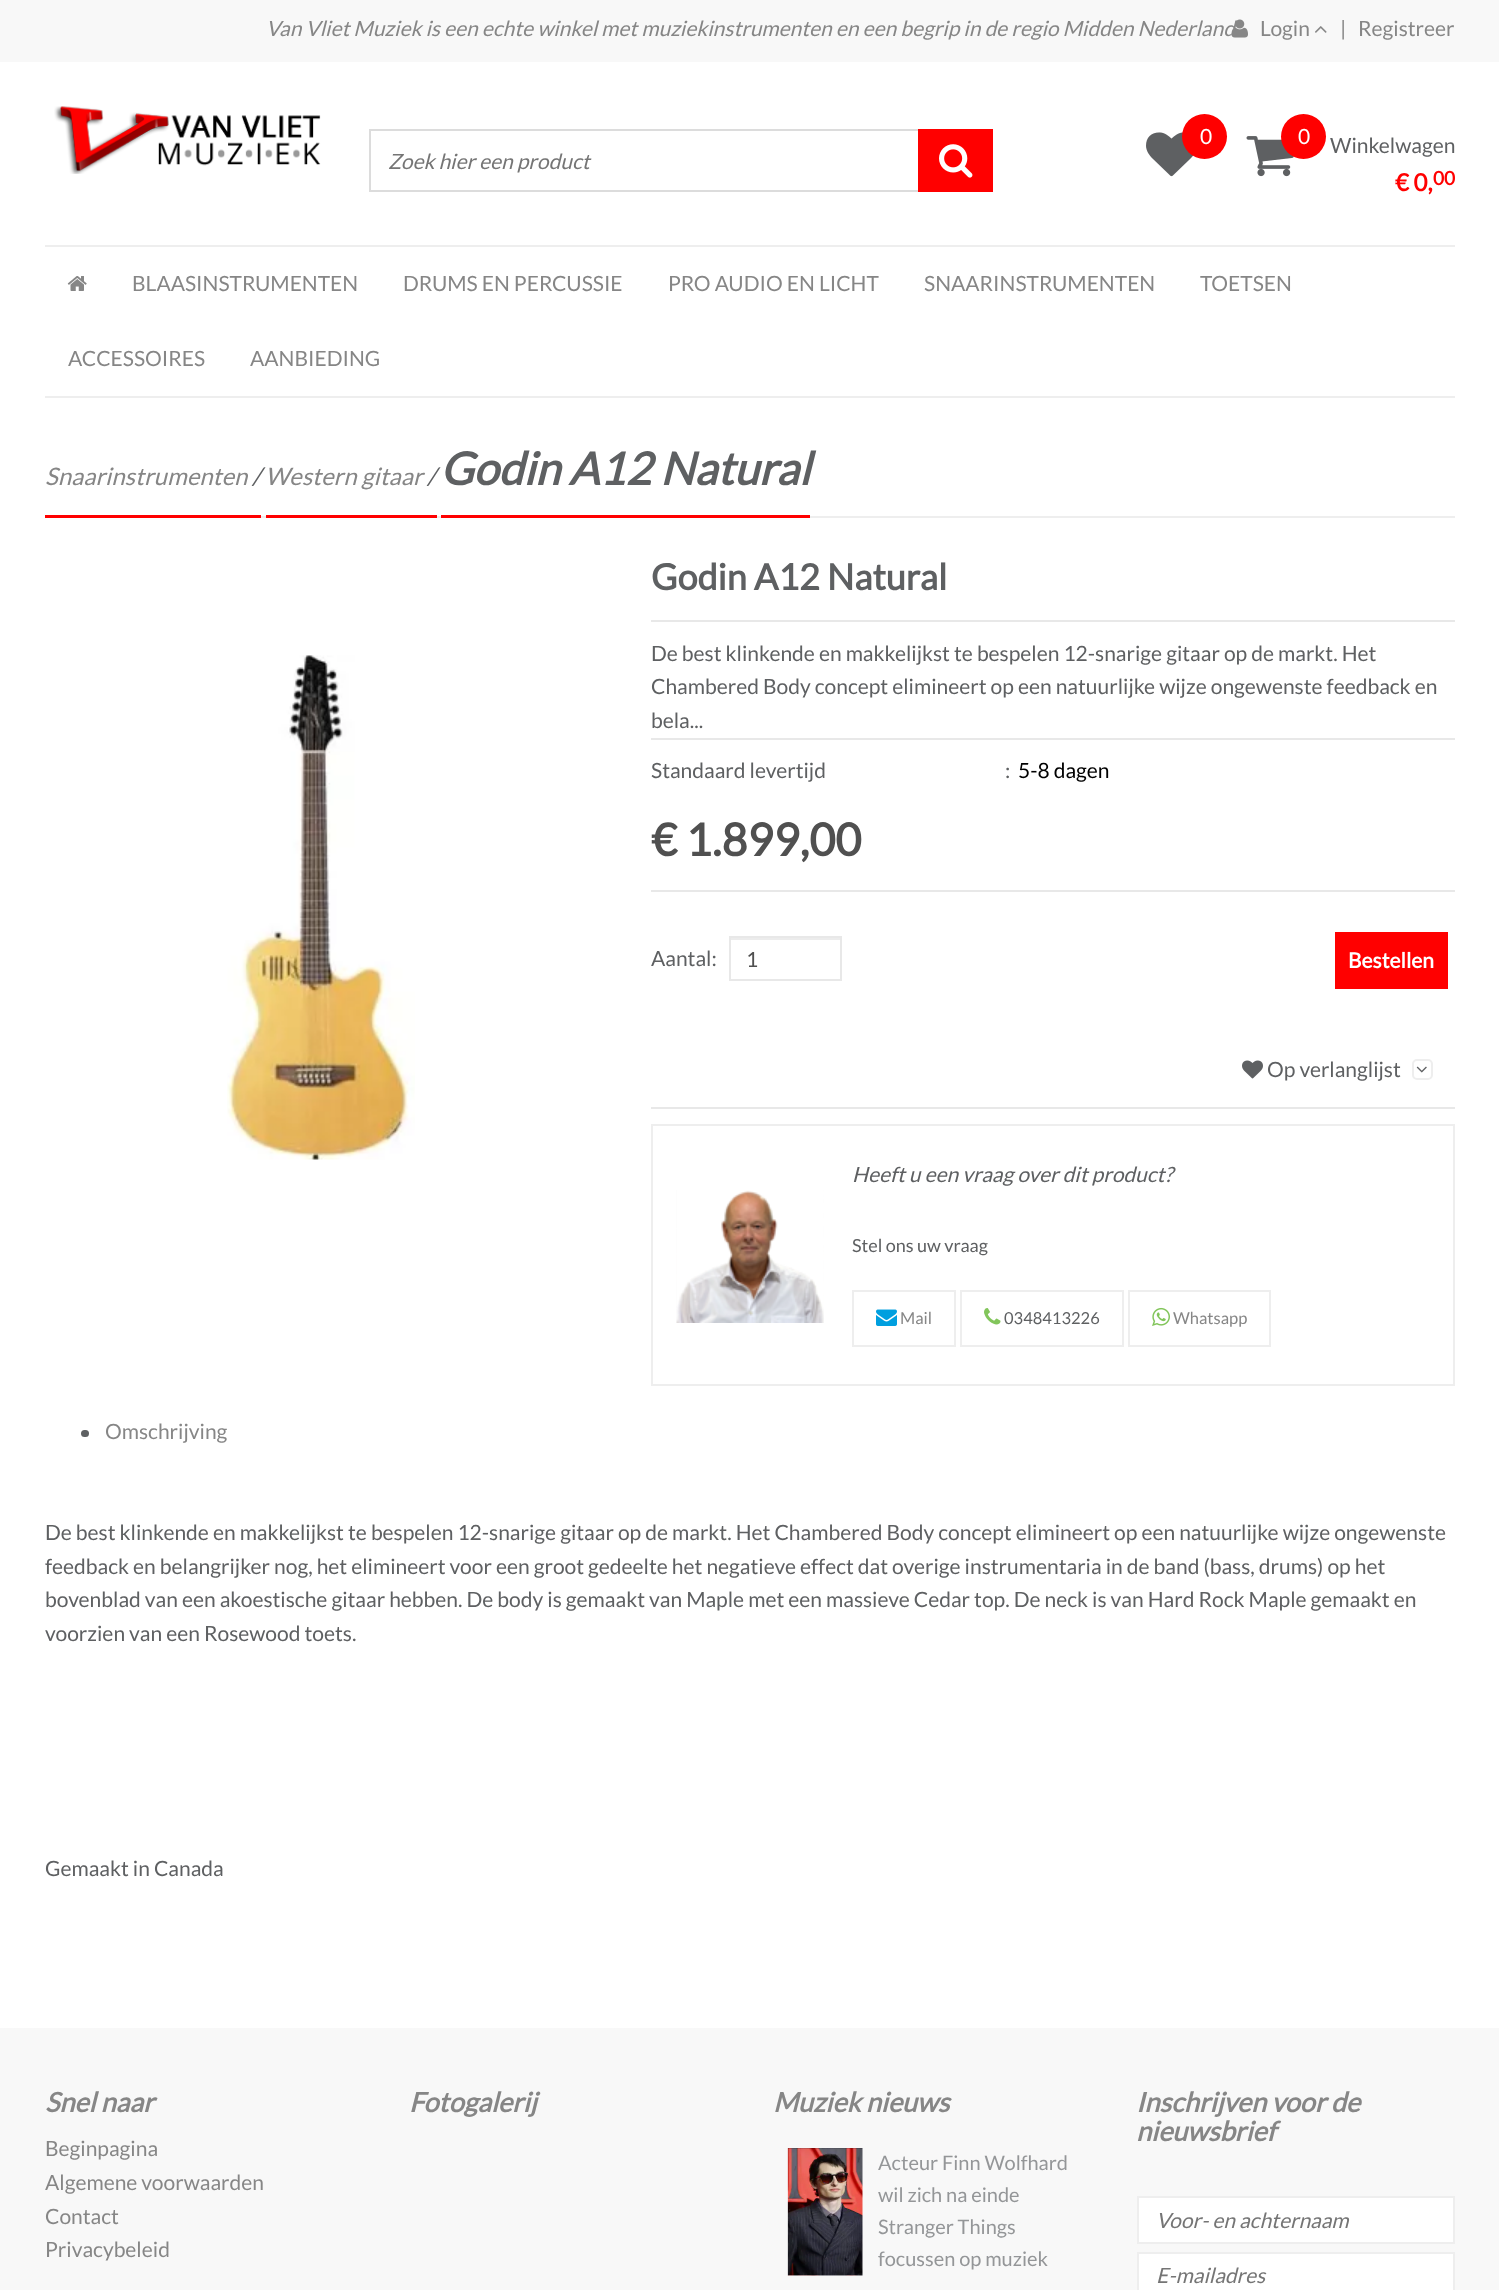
<svg xmlns="http://www.w3.org/2000/svg" width="1499" height="2290" viewBox="0 0 1499 2290">
  <style>
    .t1 { font: italic 21px Lato; fill: #868686; }
    .t2 { font: 21px Lato; fill: #868686; }
    .t3 { font: italic 21px Lato; fill: #757575; }
    .t4 { font: 21px Lato; fill: #fff; }
    .t5 { font: 21px Lato; fill: #5e6062; }
    .t6 { font: bold 24px Lato; fill: #f00; }
    .t7 { font: bold 19px Lato; fill: #f00; }
    .t8 { font: italic 24px Lato; fill: #868686; }
    .t9 { font: italic 24px Lato; fill: #5e6062; }
    .t10 { font: italic bold 45px Lato; fill: #5e6062; }
    .t11 { font: bold 36px Lato; fill: #5e6062; }
    .t12 { font: 21px Lato; fill: #000; }
    .t13 { font: bold 45px Lato; fill: #505050; }
    .t14 { font: 21px Lato; fill: #505050; }
    .t15 { font: bold 21px Lato; fill: #fff; }
    .t16 { font: italic 21px Lato; fill: #5e6062; }
    .t17 { font: 18px Lato; fill: #5e6062; }
    .t18 { font: 16.5px Lato; fill: #868686; }
    .t19 { font: 16.5px Lato; fill: #5e6062; }
    .t20 { font: italic bold 27px Lato; fill: #868686; }
    .t21 { font: 20px Lato; fill: #949698; }
  </style>
  <rect width="100%" height="100%" fill="#fff"/>
  <rect x="0" y="0" width="1499" height="62" fill="#f8f8f8"/>
  <text x="266" y="36" class="t1">Van Vliet Muziek is een echte winkel met muziekinstrumenten en een begrip in de regio Midden Nederland</text>
  <image x="1231" y="19" width="17" height="19" href="images/1.png"/>
  <text x="1260" y="36" class="t2">Login</text>
  <image x="1315" y="26" width="12" height="7" href="images/2.png"/>
  <text x="1340" y="36" class="t2">|</text>
  <text x="1358" y="36" class="t2">Registreer</text>
  <image x="54" y="106" width="267" height="68" href="images/3.png"/>
  <rect x="370" y="130" width="600" height="61" fill="none" stroke="#dcdcdc" stroke-width="2"/>
  <text x="388" y="169" class="t3">Zoek hier een product</text>
  <rect x="918" y="129" width="75" height="63" fill="#f00"/>
  <image x="939" y="144" width="34" height="34" href="images/4.png"/>
  <image x="1146" y="132" width="48" height="45" href="images/5.png"/>
  <circle cx="1204.5" cy="136.5" r="22.5" fill="#f00"/>
  <text x="1200" y="144" class="t4">0</text>
  <image x="1246" y="136" width="48" height="41" href="images/6.png"/>
  <circle cx="1303.5" cy="136.5" r="22.5" fill="#f00"/>
  <text x="1298" y="144" class="t4">0</text>
  <text x="1330" y="153" class="t5">Winkelwagen</text>
  <text x="1395" y="191" class="t6">€ 0,</text>
  <text x="1433" y="185" class="t7">00</text>
  <rect x="45" y="245" width="1410" height="2" fill="#eee"/>
  <rect x="45" y="396" width="1410" height="2" fill="#eee"/>
  <image x="67" y="276" width="20" height="15" href="images/7.png"/>
  <text x="132" y="291" class="t2">BLAASINSTRUMENTEN</text>
  <text x="403" y="291" class="t2">DRUMS EN PERCUSSIE</text>
  <text x="668" y="291" class="t2">PRO AUDIO EN LICHT</text>
  <text x="924" y="291" class="t2">SNAARINSTRUMENTEN</text>
  <text x="1200" y="291" class="t2">TOETSEN</text>
  <text x="68" y="366" class="t2">ACCESSOIRES</text>
  <text x="250" y="366" class="t2">AANBIEDING</text>
  <rect x="45" y="515" width="216" height="3" fill="#f00"/>
  <text x="45" y="485" class="t8">Snaarinstrumenten</text>
  <text x="252" y="485" class="t9">/</text>
  <rect x="261" y="516" width="1194" height="2" fill="#eee"/>
  <rect x="266" y="515" width="171" height="3" fill="#f00"/>
  <text x="265" y="485" class="t8">Western gitaar</text>
  <text x="427" y="485" class="t9">/</text>
  <rect x="441" y="515" width="369" height="3" fill="#f00"/>
  <text x="440" y="485" class="t10">Godin A12 Natural</text>
  <image x="227" y="655" width="188" height="505" href="images/8.png"/>
  <text x="651" y="590" class="t11">Godin A12 Natural</text>
  <rect x="651" y="620" width="804" height="2" fill="#e8e8e8"/>
  <text x="651" y="661" class="t5">De best klinkende en makkelijkst te bespelen 12-snarige gitaar op de markt. Het</text>
  <text x="651" y="694" class="t5">Chambered Body concept elimineert op een natuurlijke wijze ongewenste feedback en</text>
  <text x="651" y="728" class="t5">bela...</text>
  <rect x="651" y="738" width="804" height="2" fill="#e8e8e8"/>
  <text x="651" y="778" class="t5">Standaard levertijd</text>
  <text x="1005" y="778" class="t5">:</text>
  <text x="1018" y="778" class="t12">5-8 dagen</text>
  <text x="651" y="856" class="t13">€ 1.899,00</text>
  <rect x="651" y="890" width="804" height="2" fill="#e8e8e8"/>
  <text x="651" y="966" class="t5">Aantal:</text>
  <rect x="731" y="938" width="109" height="2" fill="#ececec"/>
  <rect x="730" y="937" width="111" height="43" fill="none" stroke="#e8e8e8" stroke-width="2"/>
  <text x="746" y="967" class="t14">1</text>
  <rect x="1335" y="932" width="113" height="57" fill="#f00"/>
  <text x="1348" y="968" class="t15">Bestellen</text>
  <image x="1242" y="1060" width="21" height="19" href="images/9.png"/>
  <text x="1267" y="1077" class="t5">Op verlanglijst</text>
  <rect x="1413" y="1060" width="19" height="19" rx="4" fill="none" stroke="#eee" stroke-width="2"/>
  <image x="1416" y="1066" width="11" height="7" href="images/10.png"/>
  <rect x="651" y="1107" width="804" height="2" fill="#e8e8e8"/>
  <rect x="652" y="1125" width="802" height="260" fill="none" stroke="#eee" stroke-width="2"/>
  <image x="676" y="1190" width="148" height="133" href="images/11.png"/>
  <text x="852" y="1182" class="t16">Heeft u een vraag over dit product?</text>
  <text x="852" y="1252" class="t17">Stel ons uw vraag</text>
  <rect x="853" y="1291" width="102" height="55" fill="none" stroke="#eee" stroke-width="2"/>
  <image x="876" y="1309" width="21" height="17" href="images/12.png"/>
  <text x="900" y="1324" class="t18">Mail</text>
  <rect x="961" y="1291" width="162" height="55" fill="none" stroke="#eee" stroke-width="2"/>
  <image x="984" y="1308" width="17" height="17" href="images/13.png"/>
  <text x="1004" y="1324" class="t19">0348413226</text>
  <rect x="1129" y="1291" width="141" height="55" fill="none" stroke="#eee" stroke-width="2"/>
  <image x="1152" y="1307" width="18" height="19" href="images/14.png"/>
  <text x="1173" y="1324" class="t18">Whatsapp</text>
  <rect x="81" y="1430" width="8" height="7" rx="3.5" fill="#5e6062"/>
  <text x="105" y="1439" class="t2">Omschrijving</text>
  <text x="45" y="1540" class="t5">De best klinkende en makkelijkst te bespelen 12-snarige gitaar op de markt. Het Chambered Body concept elimineert op een natuurlijke wijze ongewenste</text>
  <text x="45" y="1574" class="t5">feedback en belangrijker nog, het elimineert voor een groot gedeelte het negatieve effect dat overige instrumentaria in de band (bass, drums) op het</text>
  <text x="45" y="1607" class="t5">bovenblad van een akoestische gitaar hebben. De body is gemaakt van Maple met een massieve Cedar top. De neck is van Hard Rock Maple gemaakt en</text>
  <text x="45" y="1641" class="t5">voorzien van een Rosewood toets.</text>
  <text x="45" y="1876" class="t5">Gemaakt in Canada</text>
  <rect x="0" y="2028" width="1499" height="262" fill="#f8f8f8"/>
  <text x="45" y="2112" class="t20">Snel naar</text>
  <text x="45" y="2156" class="t2">Beginpagina</text>
  <text x="45" y="2190" class="t2">Algemene voorwaarden</text>
  <text x="45" y="2224" class="t2">Contact</text>
  <text x="45" y="2257" class="t2">Privacybeleid</text>
  <text x="409" y="2112" class="t20">Fotogalerij</text>
  <text x="773" y="2112" class="t20">Muziek nieuws</text>
  <image x="787" y="2148" width="76" height="128" href="images/15.png"/>
  <text x="878" y="2170" class="t21">Acteur Finn Wolfhard</text>
  <text x="878" y="2202" class="t21">wil zich na einde</text>
  <text x="878" y="2234" class="t21">Stranger Things</text>
  <text x="878" y="2266" class="t21">focussen op muziek</text>
  <text x="1136" y="2112" class="t20">Inschrijven voor de</text>
  <text x="1136" y="2141" class="t20">nieuwsbrief</text>
  <rect x="1138" y="2197" width="316" height="46" fill="#fff" stroke="#eee" stroke-width="2"/>
  <text x="1156" y="2228" class="t3">Voor- en achternaam</text>
  <rect x="1138" y="2253" width="316" height="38" fill="#fff" stroke="#eee" stroke-width="2"/>
  <text x="1156" y="2283" class="t3">E-mailadres</text>
</svg>
